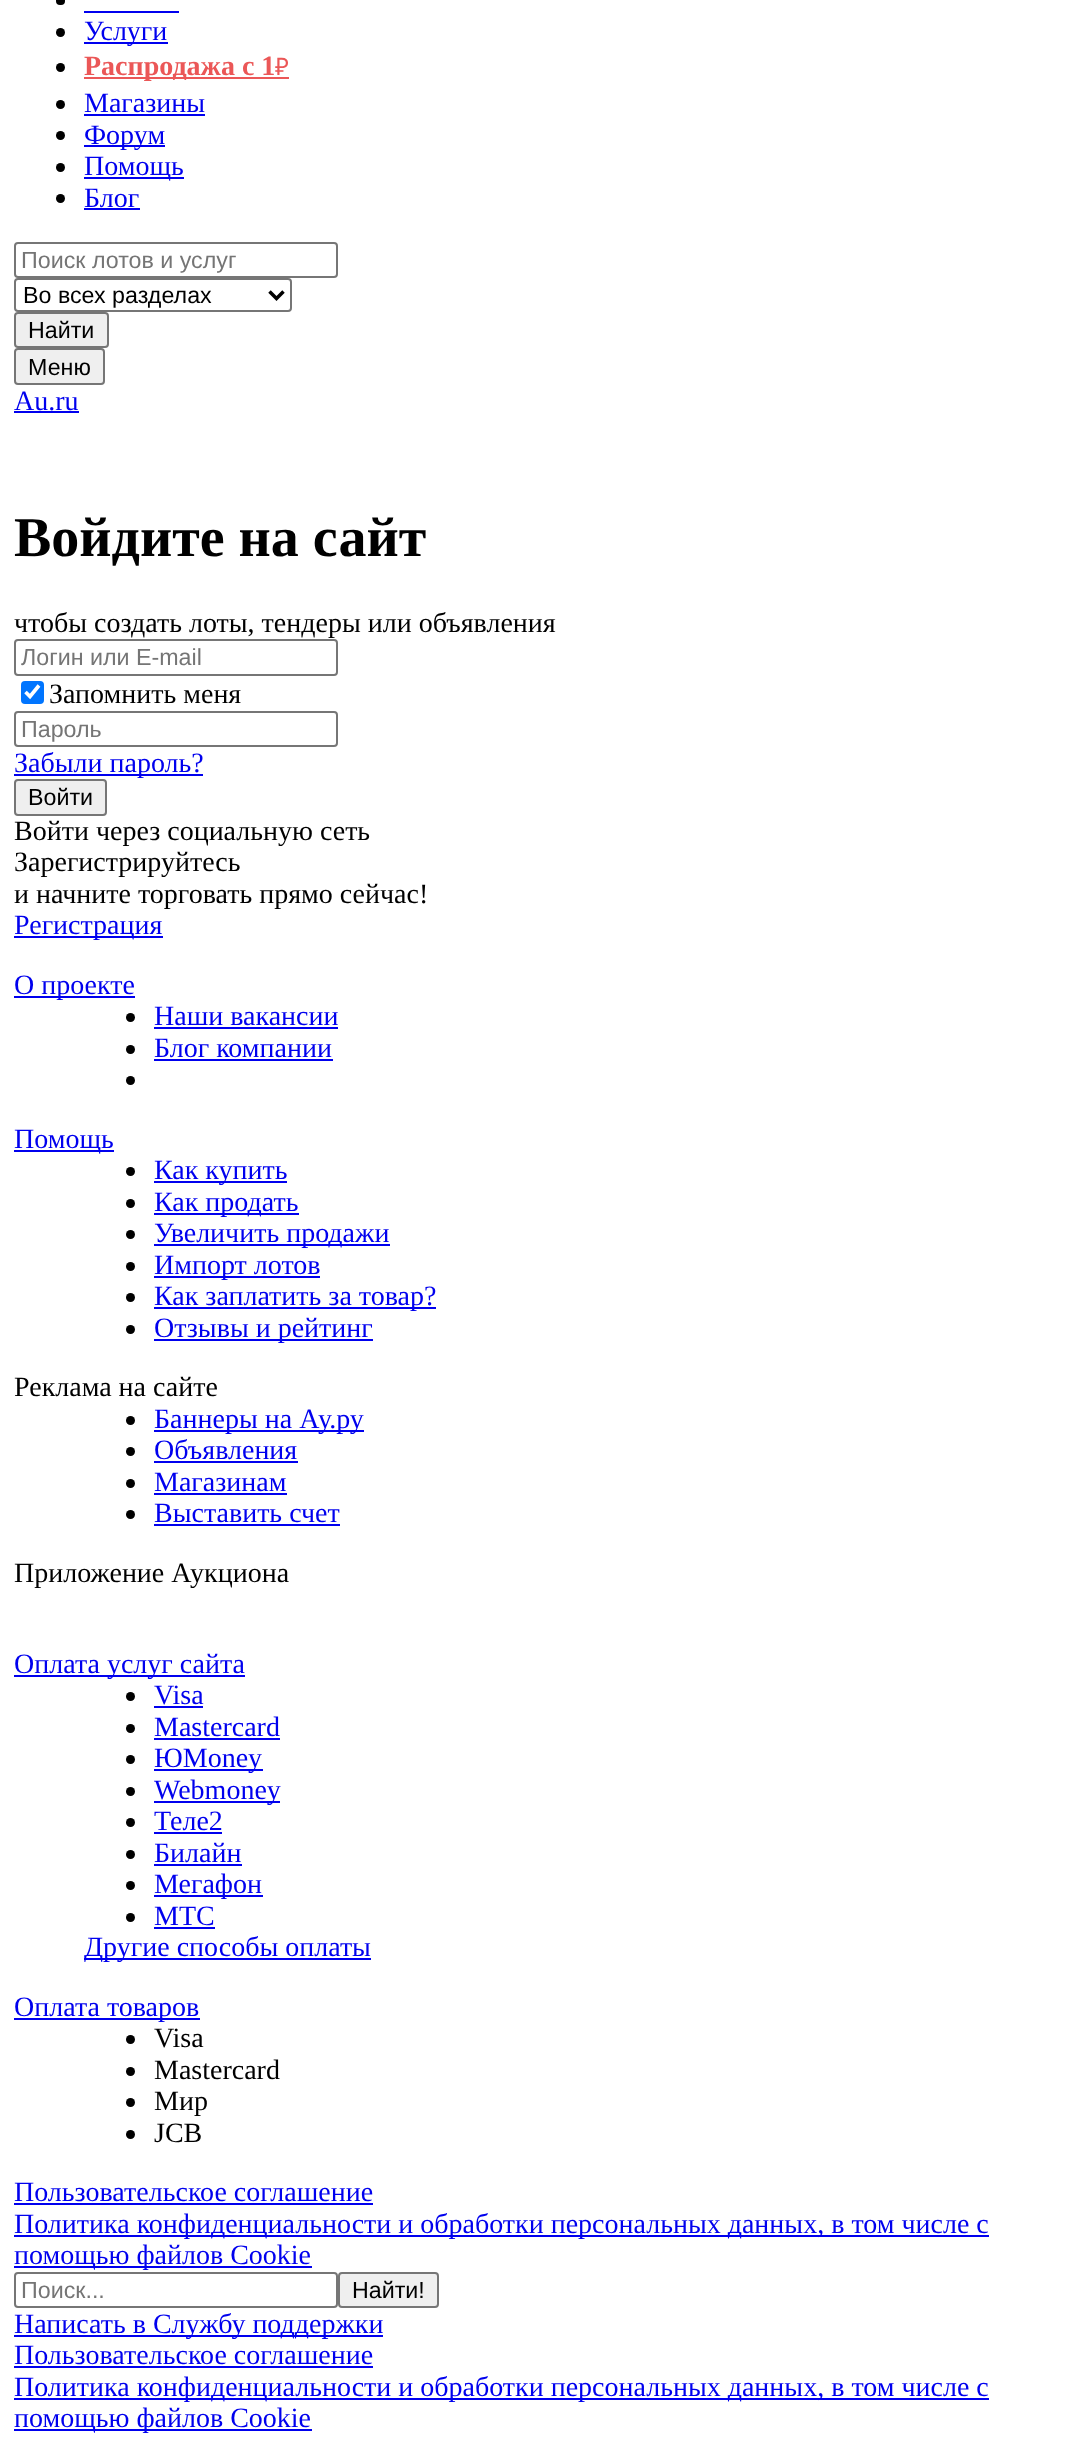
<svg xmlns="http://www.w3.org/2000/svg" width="1066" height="2441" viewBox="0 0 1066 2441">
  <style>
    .t1 { font: 28px Liberation Serif; fill: #00e; }
    .t2 { font: bold 28px Liberation Serif; fill: #eb5757; }
    .t3 { font: 24px Noto Sans; fill: #eb5757; }
    .t4 { font: 23.25px Liberation Sans; fill: #757575; }
    .t5 { font: 23.25px Liberation Sans; fill: #000; }
    .t6 { font: bold 56px Liberation Serif; fill: #000; }
    .t7 { font: 28px Liberation Serif; fill: #000; }
  </style>
  <rect width="100%" height="100%" fill="#fff"/>
  <rect x="56" y="-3" width="9" height="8" rx="4" fill="#000"/>
  <rect x="84" y="11" width="95" height="2" fill="#00e"/>
  <circle cx="60.5" cy="32.5" r="4.5" fill="#000"/>
  <rect x="84" y="42" width="84" height="2" fill="#00e"/>
  <text x="84" y="40" class="t1">Услуги</text>
  <circle cx="60.5" cy="67.5" r="4.5" fill="#000"/>
  <rect x="84" y="77" width="205" height="2" fill="#eb5757"/>
  <text x="84" y="75" class="t2">Распродажа с 1</text>
  <text x="275" y="75" class="t3">₽</text>
  <circle cx="60.5" cy="104.5" r="4.5" fill="#000"/>
  <text x="84" y="112" class="t1">Магазины</text>
  <rect x="84" y="114" width="121" height="2" fill="#00e"/>
  <circle cx="60.5" cy="135.5" r="4.5" fill="#000"/>
  <rect x="84" y="145" width="81" height="2" fill="#00e"/>
  <text x="84" y="144" class="t1">Форум</text>
  <circle cx="60.5" cy="167.5" r="4.5" fill="#000"/>
  <rect x="84" y="177" width="100" height="2" fill="#00e"/>
  <text x="84" y="175" class="t1">Помощь</text>
  <circle cx="60.5" cy="198.5" r="4.5" fill="#000"/>
  <text x="84" y="207" class="t1">Блог</text>
  <rect x="84" y="208" width="56" height="2" fill="#00e"/>
  <rect x="15" y="243" width="322" height="34" rx="3" fill="none" stroke="#767676" stroke-width="2"/>
  <text x="21" y="268" class="t4">Поиск лотов и услуг</text>
  <rect x="15" y="279" width="276" height="32" rx="3" fill="none" stroke="#767676" stroke-width="2"/>
  <path d="M269.5 291.5L276.5 298.5L283.5 291.5" fill="none" stroke="#000" stroke-width="3.5"/>
  <text x="23" y="303" class="t5">Во всех разделах</text>
  <rect x="15" y="313" width="93" height="34" rx="3" fill="#efefef" stroke="#767676" stroke-width="2"/>
  <text x="28" y="338" class="t5">Найти</text>
  <rect x="15" y="349" width="89" height="35" rx="3" fill="#efefef" stroke="#767676" stroke-width="2"/>
  <text x="28" y="375" class="t5">Меню</text>
  <text x="14" y="410" class="t1">Au.ru</text>
  <rect x="14" y="411" width="65" height="2" fill="#00e"/>
  <text x="14" y="556" class="t6">Войдите на сайт</text>
  <text x="14" y="632" class="t7">чтобы создать лоты, тендеры или объявления</text>
  <rect x="15" y="640" width="322" height="35" rx="3" fill="none" stroke="#767676" stroke-width="2"/>
  <text x="21" y="665" class="t4">Логин или E-mail</text>
  <rect x="21" y="681" width="23" height="23" rx="4" fill="#0075ff"/>
  <path d="M25.5 692L30 696.5L39 685.5" fill="none" stroke="#fff" stroke-width="3.6"/>
  <text x="49" y="703" class="t7">Запомнить меня</text>
  <rect x="15" y="712" width="322" height="34" rx="3" fill="none" stroke="#767676" stroke-width="2"/>
  <text x="21" y="737" class="t4">Пароль</text>
  <rect x="14" y="774" width="189" height="2" fill="#00e"/>
  <text x="14" y="772" class="t1">Забыли пароль?</text>
  <rect x="15" y="780" width="91" height="35" rx="3" fill="#efefef" stroke="#767676" stroke-width="2"/>
  <text x="28" y="805" class="t5">Войти</text>
  <text x="14" y="840" class="t7">Войти через социальную сеть</text>
  <text x="14" y="871" class="t7">Зарегистрируйтесь</text>
  <text x="14" y="903" class="t7">и начните торговать прямо сейчас!</text>
  <rect x="14" y="936" width="149" height="2" fill="#00e"/>
  <text x="14" y="934" class="t1">Регистрация</text>
  <rect x="14" y="996" width="121" height="2" fill="#00e"/>
  <text x="14" y="994" class="t1">О проекте</text>
  <circle cx="130.5" cy="1017.5" r="4.5" fill="#000"/>
  <text x="154" y="1025" class="t1">Наши вакансии</text>
  <rect x="154" y="1027" width="184" height="2" fill="#00e"/>
  <circle cx="130.5" cy="1049.5" r="4.5" fill="#000"/>
  <text x="154" y="1057" class="t1">Блог компании</text>
  <rect x="154" y="1059" width="179" height="2" fill="#00e"/>
  <circle cx="130.5" cy="1080.5" r="4.5" fill="#000"/>
  <rect x="14" y="1150" width="100" height="2" fill="#00e"/>
  <text x="14" y="1148" class="t1">Помощь</text>
  <circle cx="130.5" cy="1171.5" r="4.5" fill="#000"/>
  <rect x="154" y="1181" width="133" height="2" fill="#00e"/>
  <text x="154" y="1179" class="t1">Как купить</text>
  <circle cx="130.5" cy="1203.5" r="4.5" fill="#000"/>
  <rect x="154" y="1213" width="145" height="2" fill="#00e"/>
  <text x="154" y="1211" class="t1">Как продать</text>
  <circle cx="130.5" cy="1234.5" r="4.5" fill="#000"/>
  <rect x="154" y="1244" width="236" height="2" fill="#00e"/>
  <text x="154" y="1242" class="t1">Увеличить продажи</text>
  <circle cx="130.5" cy="1266.5" r="4.5" fill="#000"/>
  <rect x="154" y="1276" width="166" height="2" fill="#00e"/>
  <text x="154" y="1274" class="t1">Импорт лотов</text>
  <circle cx="130.5" cy="1297.5" r="4.5" fill="#000"/>
  <rect x="154" y="1307" width="282" height="2" fill="#00e"/>
  <text x="154" y="1305" class="t1">Как заплатить за товар?</text>
  <circle cx="130.5" cy="1329.5" r="4.5" fill="#000"/>
  <rect x="154" y="1339" width="219" height="2" fill="#00e"/>
  <text x="154" y="1337" class="t1">Отзывы и рейтинг</text>
  <text x="14" y="1396" class="t7">Реклама на сайте</text>
  <circle cx="130.5" cy="1420.5" r="4.5" fill="#000"/>
  <rect x="154" y="1430" width="210" height="2" fill="#00e"/>
  <text x="154" y="1428" class="t1">Баннеры на Ау.ру</text>
  <circle cx="130.5" cy="1451.5" r="4.5" fill="#000"/>
  <text x="154" y="1459" class="t1">Объявления</text>
  <rect x="154" y="1461" width="144" height="2" fill="#00e"/>
  <circle cx="130.5" cy="1483.5" r="4.5" fill="#000"/>
  <text x="154" y="1491" class="t1">Магазинам</text>
  <rect x="154" y="1493" width="133" height="2" fill="#00e"/>
  <circle cx="130.5" cy="1514.5" r="4.5" fill="#000"/>
  <text x="154" y="1522" class="t1">Выставить счет</text>
  <rect x="154" y="1524" width="186" height="2" fill="#00e"/>
  <text x="14" y="1582" class="t7">Приложение Аукциона</text>
  <rect x="14" y="1675" width="231" height="2" fill="#00e"/>
  <text x="14" y="1673" class="t1">Оплата услуг сайта</text>
  <circle cx="130.5" cy="1696.5" r="4.5" fill="#000"/>
  <text x="154" y="1704" class="t1">Visa</text>
  <rect x="154" y="1706" width="49" height="2" fill="#00e"/>
  <circle cx="130.5" cy="1728.5" r="4.5" fill="#000"/>
  <text x="154" y="1736" class="t1">Mastercard</text>
  <rect x="154" y="1738" width="126" height="2" fill="#00e"/>
  <circle cx="130.5" cy="1759.5" r="4.5" fill="#000"/>
  <rect x="154" y="1769" width="109" height="2" fill="#00e"/>
  <text x="154" y="1767" class="t1">ЮMoney</text>
  <circle cx="130.5" cy="1791.5" r="4.5" fill="#000"/>
  <rect x="154" y="1801" width="126" height="2" fill="#00e"/>
  <text x="154" y="1799" class="t1">Webmoney</text>
  <circle cx="130.5" cy="1822.5" r="4.5" fill="#000"/>
  <text x="154" y="1830" class="t1">Теле2</text>
  <rect x="154" y="1832" width="68" height="2" fill="#00e"/>
  <circle cx="130.5" cy="1854.5" r="4.5" fill="#000"/>
  <text x="154" y="1862" class="t1">Билайн</text>
  <rect x="154" y="1864" width="88" height="2" fill="#00e"/>
  <circle cx="130.5" cy="1885.5" r="4.5" fill="#000"/>
  <rect x="154" y="1895" width="109" height="2" fill="#00e"/>
  <text x="154" y="1893" class="t1">Мегафон</text>
  <circle cx="130.5" cy="1917.5" r="4.5" fill="#000"/>
  <text x="154" y="1925" class="t1">МТС</text>
  <rect x="154" y="1927" width="61" height="2" fill="#00e"/>
  <rect x="84" y="1958" width="287" height="2" fill="#00e"/>
  <text x="84" y="1956" class="t1">Другие способы оплаты</text>
  <rect x="14" y="2018" width="186" height="2" fill="#00e"/>
  <text x="14" y="2016" class="t1">Оплата товаров</text>
  <circle cx="130.5" cy="2039.5" r="4.5" fill="#000"/>
  <text x="154" y="2047" class="t7">Visa</text>
  <circle cx="130.5" cy="2071.5" r="4.5" fill="#000"/>
  <text x="154" y="2079" class="t7">Mastercard</text>
  <circle cx="130.5" cy="2102.5" r="4.5" fill="#000"/>
  <text x="154" y="2110" class="t7">Мир</text>
  <circle cx="130.5" cy="2134.5" r="4.5" fill="#000"/>
  <text x="154" y="2142" class="t7">JCB</text>
  <text x="14" y="2201" class="t1">Пользовательское соглашение</text>
  <rect x="14" y="2203" width="359" height="2" fill="#00e"/>
  <rect x="14" y="2235" width="975" height="2" fill="#00e"/>
  <text x="14" y="2233" class="t1">Политика конфиденциальности и обработки персональных данных, в том числе с</text>
  <rect x="14" y="2266" width="298" height="2" fill="#00e"/>
  <text x="14" y="2264" class="t1">помощью файлов Cookie</text>
  <rect x="15" y="2273" width="322" height="34" rx="3" fill="none" stroke="#767676" stroke-width="2"/>
  <text x="21" y="2298" class="t4">Поиск...</text>
  <rect x="339" y="2273" width="99" height="34" rx="3" fill="#efefef" stroke="#767676" stroke-width="2"/>
  <text x="352" y="2298" class="t5">Найти!</text>
  <rect x="14" y="2335" width="369" height="2" fill="#00e"/>
  <text x="14" y="2333" class="t1">Написать в Службу поддержки</text>
  <text x="14" y="2364" class="t1">Пользовательское соглашение</text>
  <rect x="14" y="2366" width="359" height="2" fill="#00e"/>
  <rect x="14" y="2398" width="975" height="2" fill="#00e"/>
  <text x="14" y="2396" class="t1">Политика конфиденциальности и обработки персональных данных, в том числе с</text>
  <rect x="14" y="2429" width="298" height="2" fill="#00e"/>
  <text x="14" y="2427" class="t1">помощью файлов Cookie</text>
</svg>
